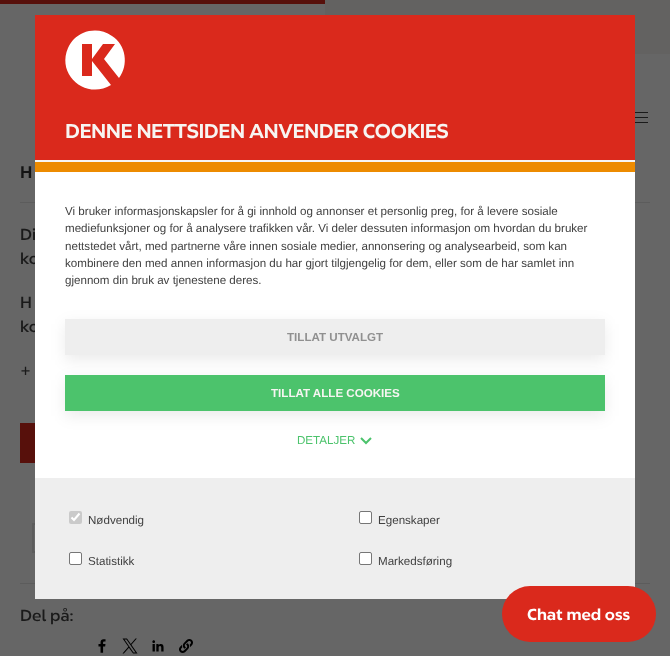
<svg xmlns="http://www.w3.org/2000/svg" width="670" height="656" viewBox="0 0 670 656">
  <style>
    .t1 { font: bold 16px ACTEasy; fill: #141414; }
    .t2 { font: 500 16px ACTEasy; fill: #1a1a1a; }
    .t3 { font: bold 19.25px ACTEasy; fill: #f7f5f2; }
    .t4 { font: 11.6px Liberation Sans; fill: #414141; }
    .t5 { font: bold 11.6px Liberation Sans; fill: #909090; }
    .t6 { font: bold 11.6px Liberation Sans; fill: #f7f5f2; }
    .t7 { font: 11.6px Liberation Sans; fill: #4cc36c; }
    .t8 { font: bold 16px 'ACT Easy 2'; fill: #fff; }
  </style>
  <rect width="100%" height="100%" fill="#666"/>
  <rect x="325" y="0" width="345" height="54" fill="#636261"/>
  <rect x="0" y="0" width="325" height="4" fill="#57100b"/>
  <rect x="632" y="112" width="16" height="1" fill="#1a1a1a"/>
  <rect x="632" y="117" width="16" height="1" fill="#1a1a1a"/>
  <rect x="632" y="122" width="16" height="1" fill="#1a1a1a"/>
  <text x="20" y="178" class="t1">H</text>
  <rect x="20" y="202" width="630" height="1" fill="#5c5c5c"/>
  <text x="20" y="240" class="t2">Di</text>
  <text x="20" y="264" class="t2">ko</text>
  <text x="20" y="308" class="t2">H</text>
  <text x="20" y="332" class="t2">ko</text>
  <text x="20" y="376" class="t2">+</text>
  <rect x="20" y="423" width="15" height="40" fill="#57100b"/>
  <rect x="33" y="524" width="46" height="28" fill="none" stroke="#5c5c5c" stroke-width="2"/>
  <rect x="20" y="583" width="630" height="1" fill="#5c5c5c"/>
  <text x="20" y="621" class="t2">Del på:</text>
  <image x="98" y="639" width="8" height="14" href="images/1.png"/>
  <image x="122" y="638" width="16" height="16" href="images/2.png"/>
  <image x="152" y="640" width="12" height="12" href="images/3.png"/>
  <image x="179" y="639" width="14" height="14" href="images/4.png"/>
  <rect x="35" y="172" width="600" height="306" fill="#fff"/>
  <rect x="35" y="15" width="600" height="145" fill="#da291c"/>
  <rect x="35" y="160" width="600" height="2" fill="#f7f5f2"/>
  <path d="M104 59L115 44H103L92 59V44H82V76H92V61L111 85C87 100 56 76 68 48C71 41 76 36 83 33C93 29 103 30 112 36C126 45 129 65 119 78Z" fill="#fff"/>
  <text x="65" y="138" class="t3">DENNE NETTSIDEN ANVENDER COOKIES</text>
  <rect x="35" y="162" width="600" height="10" fill="#ed8b00"/>
  <text x="65" y="215" class="t4">Vi bruker informasjonskapsler for å gi innhold og annonser et personlig preg, for å levere sosiale</text>
  <text x="65" y="232" class="t4">mediefunksjoner og for å analysere trafikken vår. Vi deler dessuten informasjon om hvordan du bruker</text>
  <text x="65" y="250" class="t4">nettstedet vårt, med partnerne våre innen sosiale medier, annonsering og analysearbeid, som kan</text>
  <text x="65" y="267" class="t4">kombinere den med annen informasjon du har gjort tilgjengelig for dem, eller som de har samlet inn</text>
  <text x="65" y="284" class="t4">gjennom din bruk av tjenestene deres.</text>
  <rect x="65" y="324" width="540" height="36" fill="#00000014" filter="blur(7.5px)"/>
  <rect x="65" y="319" width="540" height="36" fill="#eee"/>
  <text x="287" y="341" class="t5">TILLAT UTVALGT</text>
  <rect x="65" y="380" width="540" height="36" fill="#00000014" filter="blur(7.5px)"/>
  <rect x="65" y="375" width="540" height="36" fill="#4cc36c"/>
  <text x="271" y="397" class="t6">TILLAT ALLE COOKIES</text>
  <text x="297" y="444" class="t7">DETALJER</text>
  <path d="M361 438L366 443L371 438" fill="none" stroke="#4cc36c" stroke-width="2"/>
  <rect x="35" y="478" width="600" height="121" fill="#eee"/>
  <rect x="69" y="511" width="13" height="13" rx="2" fill="#cacaca"/>
  <path d="M71.5 517.5L74 520L79.5 513.5" fill="none" stroke="#fff" stroke-width="2.1"/>
  <text x="88" y="524" class="t4">Nødvendig</text>
  <rect x="359.5" y="511.5" width="12" height="12" rx="1.5" fill="#fff" stroke="#767676"/>
  <text x="378" y="524" class="t4">Egenskaper</text>
  <rect x="69.5" y="552.5" width="12" height="12" rx="1.5" fill="#fff" stroke="#767676"/>
  <text x="88" y="565" class="t4">Statistikk</text>
  <rect x="359.5" y="552.5" width="12" height="12" rx="1.5" fill="#fff" stroke="#767676"/>
  <text x="378" y="565" class="t4">Markedsføring</text>
  <rect x="502" y="586" width="154" height="56" rx="28" fill="#da291c"/>
  <text x="527" y="620" class="t8">Chat med oss</text>
</svg>
